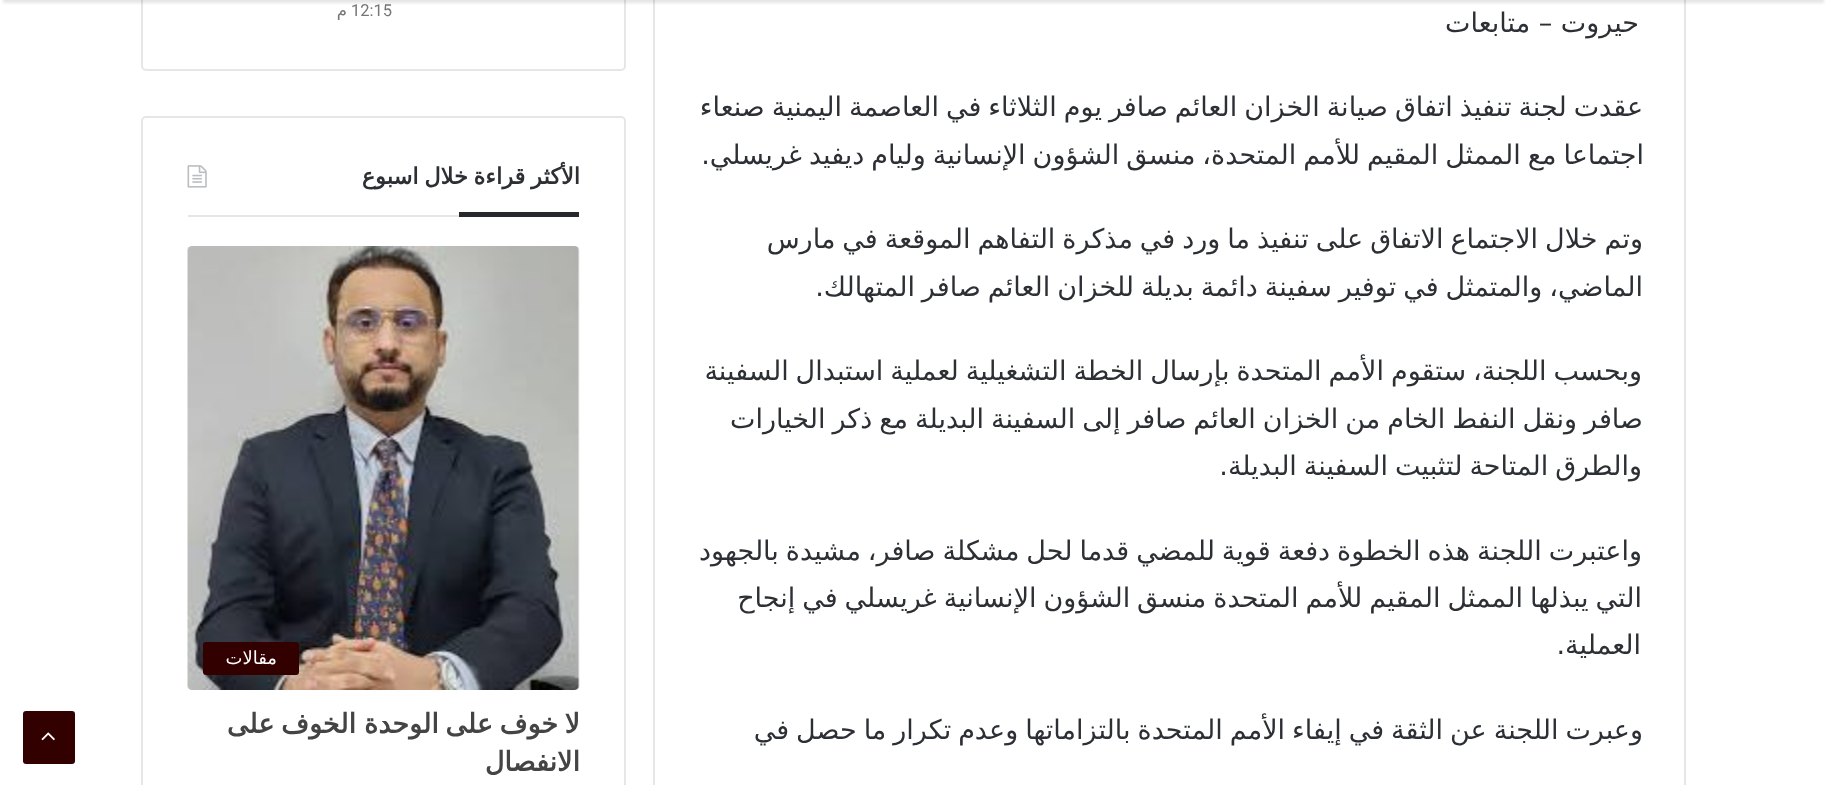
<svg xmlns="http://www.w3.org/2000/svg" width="1826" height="785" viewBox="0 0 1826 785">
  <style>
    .t1 { font: 27px DejaVu Sans; direction: rtl; fill: #2c2f34; }
    .t2 { font: 16.5px Roboto; fill: #767676; }
    .t3 { font: 16.5px DejaVu Sans; direction: rtl; fill: #767676; }
    .t4 { font: bold 22.5px DejaVu Sans; direction: rtl; fill: #2c2f34; }
    .t5 { font: 18px DejaVu Sans; direction: rtl; fill: #fff; }
    .t6 { font: bold 27px DejaVu Sans; direction: rtl; fill: #444; }
  </style>
  <rect width="100%" height="100%" fill="#fff"/>
  <rect x="654" y="-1" width="1031" height="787" fill="none" stroke="#e6e6e6" stroke-width="2"/>
  <rect x="142" y="-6" width="483" height="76" rx="4" fill="none" stroke="#e6e6e6" stroke-width="2"/>
  <rect x="3" y="-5" width="1821" height="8" fill="#0000001a" filter="blur(1.5px)"/>
  <text x="1639" y="32" class="t1">حيروت – متابعات</text>
  <text x="1643" y="116" word-spacing="-1.6" class="t1">عقدت لجنة تنفيذ اتفاق صيانة الخزان العائم صافر يوم الثلاثاء في العاصمة اليمنية صنعاء</text>
  <text x="1644" y="164" word-spacing="-1.6" class="t1">اجتماعا مع الممثل المقيم للأمم المتحدة، منسق الشؤون الإنسانية وليام ديفيد غريسلي.</text>
  <text x="1643" y="248" word-spacing="-1.6" class="t1">وتم خلال الاجتماع الاتفاق على تنفيذ ما ورد في مذكرة التفاهم الموقعة في مارس</text>
  <text x="1643" y="296" word-spacing="-1.6" class="t1">الماضي، والمتمثل في توفير سفينة دائمة بديلة للخزان العائم صافر المتهالك.</text>
  <text x="1642" y="380" word-spacing="-1.6" class="t1">وبحسب اللجنة، ستقوم الأمم المتحدة بإرسال الخطة التشغيلية لعملية استبدال السفينة</text>
  <text x="1643" y="428" word-spacing="-1.6" class="t1">صافر ونقل النفط الخام من الخزان العائم صافر إلى السفينة البديلة مع ذكر الخيارات</text>
  <text x="1642" y="475" word-spacing="-1.6" class="t1">والطرق المتاحة لتثبيت السفينة البديلة.</text>
  <text x="1642" y="560" word-spacing="-1.6" class="t1">واعتبرت اللجنة هذه الخطوة دفعة قوية للمضي قدما لحل مشكلة صافر، مشيدة بالجهود</text>
  <text x="1642" y="607" word-spacing="-1.6" class="t1">التي يبذلها الممثل المقيم للأمم المتحدة منسق الشؤون الإنسانية غريسلي في إنجاح</text>
  <text x="1641" y="654" class="t1">العملية.</text>
  <text x="1643" y="739" word-spacing="-1.6" class="t1">وعبرت اللجنة عن الثقة في إيفاء الأمم المتحدة بالتزاماتها وعدم تكرار ما حصل في</text>
  <text x="351" y="16" class="t2">12:15</text>
  <text x="347" y="16" class="t3">م</text>
  <rect x="142" y="117" width="483" height="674" rx="4" fill="none" stroke="#e6e6e6" stroke-width="2"/>
  <rect x="188" y="215" width="271" height="2" fill="#e6e6e6"/>
  <text x="580" y="184" word-spacing="-1.5" class="t4">الأكثر قراءة خلال اسبوع</text>
  <image x="187" y="165" width="20" height="23" href="images/1.png"/>
  <rect x="459" y="212" width="120" height="5" fill="#27292d"/>
  <image x="187" y="246" width="393" height="444" href="images/2.png"/>
  <rect x="203" y="642" width="96" height="33" rx="3" fill="#300"/>
  <text x="277" y="664" class="t5">مقالات</text>
  <text x="580" y="733" word-spacing="-2" class="t6">لا خوف على الوحدة</text>
  <text x="356" y="733" word-spacing="-2" class="t6">الخوف على</text>
  <text x="580" y="771" class="t6">الانفصال</text>
  <rect x="23" y="711" width="52" height="53" rx="3" fill="#300"/>
  <image x="41" y="732" width="14" height="9" href="images/3.png"/>
</svg>
